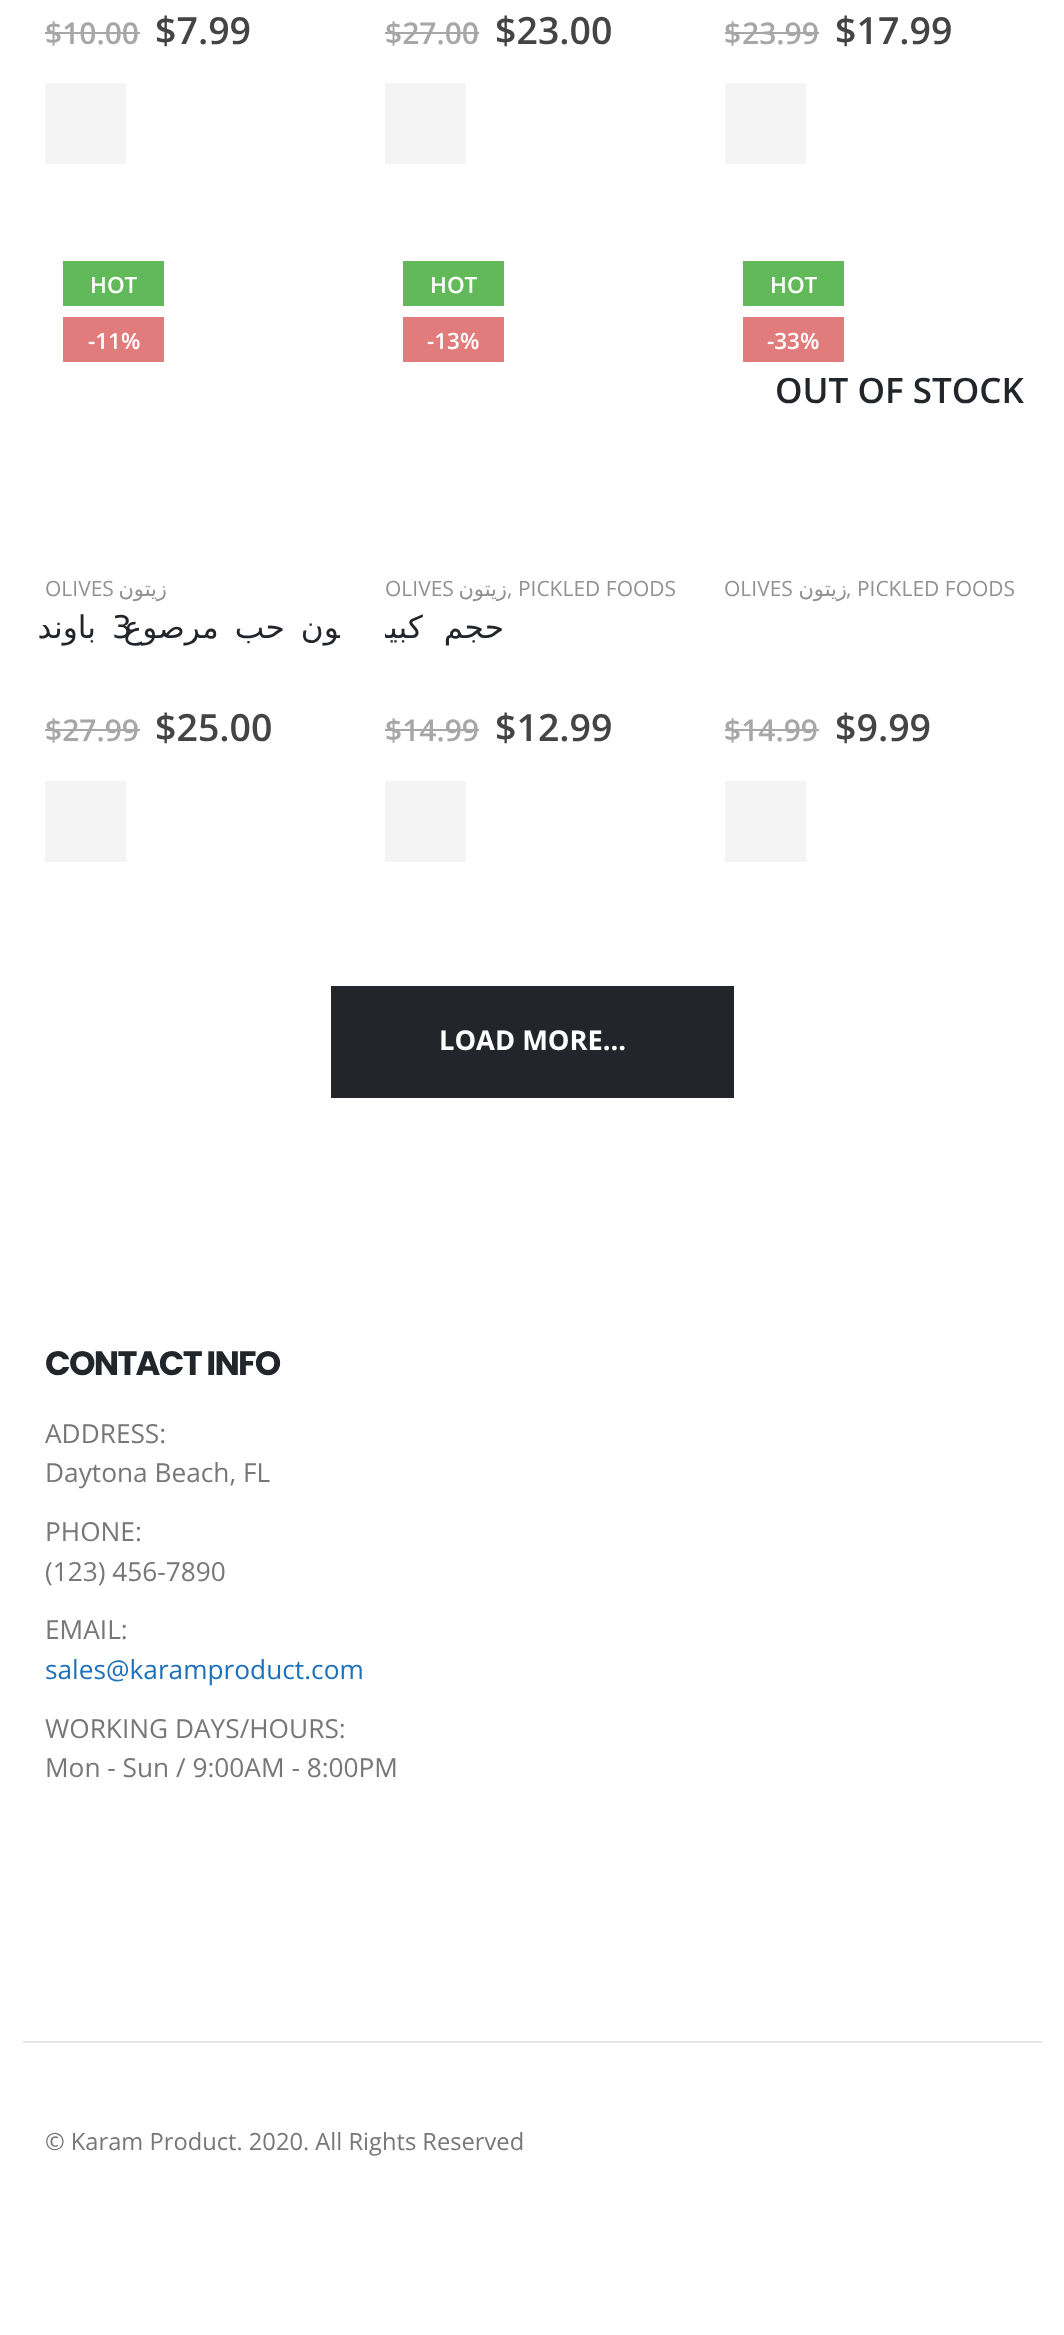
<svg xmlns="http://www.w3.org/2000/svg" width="1064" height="2335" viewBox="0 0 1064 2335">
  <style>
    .t1 { font: 600 30px Open Sans; fill: #a7a7a7; }
    .t2 { font: 600 37.5px Open Sans; fill: #444; }
    .t3 { font: 600 22.5px Open Sans; fill: #fff; }
    .t4 { font: 21px Open Sans; fill: #929292; }
    .t5 { font: 21px DejaVu Sans; direction: rtl; fill: #929292; }
    .t6 { font: 31.25px DejaVu Sans; letter-spacing: -1.5px; direction: rtl; fill: #222529; }
    .t7 { font: 31.25px DejaVu Sans; letter-spacing: -1.5px; fill: #222529; }
    .t8 { font: 600 35px Open Sans; fill: #222529; }
    .t9 { font: bold 27.25px Open Sans; fill: #fff; }
    .t10 { font: bold 33.75px Poppins; letter-spacing: -1.75px; fill: #222529; }
    .t11 { font: 26.25px Open Sans; fill: #777; }
    .t12 { font: 26.25px Open Sans; fill: #1d70ba; }
    .t13 { font: 23.7px Open Sans; fill: #777; }
  </style>
  <defs>
    <clipPath id="clip1"><rect x="45" y="608" width="295" height="40"/></clipPath>
    <clipPath id="clip2"><rect x="385" y="608" width="295" height="40"/></clipPath>
  </defs>
  <rect width="100%" height="100%" fill="#fff"/>
  <text x="45" y="44" class="t1">$10.00</text>
  <rect x="45" y="32" width="95" height="2" fill="#a7a7a7"/>
  <text x="155" y="44" class="t2">$7.99</text>
  <rect x="45" y="83" width="81" height="81" fill="#f4f4f4"/>
  <text x="385" y="44" class="t1">$27.00</text>
  <rect x="385" y="32" width="94" height="2" fill="#a7a7a7"/>
  <text x="495" y="44" class="t2">$23.00</text>
  <rect x="385" y="83" width="81" height="81" fill="#f4f4f4"/>
  <text x="724" y="44" class="t1">$</text>
  <rect x="725" y="32" width="18" height="2" fill="#a7a7a7"/>
  <text x="742" y="44" class="t1">23.99</text>
  <rect x="743" y="32" width="76" height="2" fill="#a7a7a7"/>
  <text x="835" y="44" class="t2">$17.99</text>
  <rect x="725" y="83" width="81" height="81" fill="#f4f4f4"/>
  <rect x="63" y="261" width="101" height="45" fill="#62b959"/>
  <text x="90" y="293" class="t3">HOT</text>
  <rect x="63" y="317" width="101" height="45" fill="#e27c7c"/>
  <text x="88" y="349" class="t3">-11%</text>
  <text x="45" y="596" class="t4">OLIVES</text>
  <text x="167" y="596" class="t5">زيتون</text>
  <text x="96" y="638" class="t6">باوند</text>
  <text x="112" y="638" class="t7">3</text>
  <g clip-path="url(#clip1)">
    <text x="373" y="638" word-spacing="6" class="t6">زيتون حب مرصوع</text>
  </g>
  <text x="45" y="741" class="t1">$27.99</text>
  <rect x="45" y="729" width="95" height="2" fill="#a7a7a7"/>
  <text x="155" y="741" class="t2">$25.00</text>
  <rect x="45" y="781" width="81" height="81" fill="#f4f4f4"/>
  <rect x="403" y="261" width="101" height="45" fill="#62b959"/>
  <text x="430" y="293" class="t3">HOT</text>
  <rect x="403" y="317" width="101" height="45" fill="#e27c7c"/>
  <text x="427" y="349" class="t3">-13%</text>
  <text x="385" y="596" class="t4">OLIVES</text>
  <text x="507" y="596" class="t5">زيتون</text>
  <text x="507" y="596" class="t4">, PICKLED FOODS</text>
  <g clip-path="url(#clip2)">
    <text x="504" y="638" word-spacing="11" class="t6">حجم كبير</text>
  </g>
  <text x="385" y="741" class="t1">$14.99</text>
  <rect x="385" y="729" width="94" height="2" fill="#a7a7a7"/>
  <text x="495" y="741" class="t2">$12.99</text>
  <rect x="385" y="781" width="81" height="81" fill="#f4f4f4"/>
  <rect x="743" y="261" width="101" height="45" fill="#62b959"/>
  <text x="770" y="293" class="t3">HOT</text>
  <rect x="743" y="317" width="101" height="45" fill="#e27c7c"/>
  <text x="767" y="349" class="t3">-33%</text>
  <text x="775" y="403" class="t8">OUT OF STOCK</text>
  <text x="724" y="596" class="t4">OLIVES</text>
  <text x="847" y="596" class="t5">زيتون</text>
  <text x="846" y="596" class="t4">, PICKLED FOODS</text>
  <text x="724" y="741" class="t1">$14.99</text>
  <rect x="725" y="729" width="94" height="2" fill="#a7a7a7"/>
  <text x="835" y="741" class="t2">$9.99</text>
  <rect x="725" y="781" width="81" height="81" fill="#f4f4f4"/>
  <rect x="331" y="986" width="403" height="112" fill="#222529"/>
  <text x="439" y="1050" class="t9">LOAD MORE...</text>
  <text x="45" y="1375" class="t10">CONTACT INFO</text>
  <text x="45" y="1443" class="t11">ADDRESS:</text>
  <text x="45" y="1482" class="t11">Daytona Beach, FL</text>
  <text x="45" y="1541" class="t11">PHONE:</text>
  <text x="45" y="1581" class="t11">(123) 456-7890</text>
  <text x="45" y="1639" class="t11">EMAIL:</text>
  <text x="45" y="1679" class="t12">sales@karamproduct.com</text>
  <text x="45" y="1738" class="t11">WORKING DAYS/HOURS:</text>
  <text x="45" y="1777" class="t11">Mon - Sun / 9:00AM - 8:00PM</text>
  <rect x="23" y="2041" width="1019" height="2" fill="#e7e7e7"/>
  <text x="45" y="2150" class="t13">© Karam Product. 2020. All Rights Reserved</text>
</svg>
